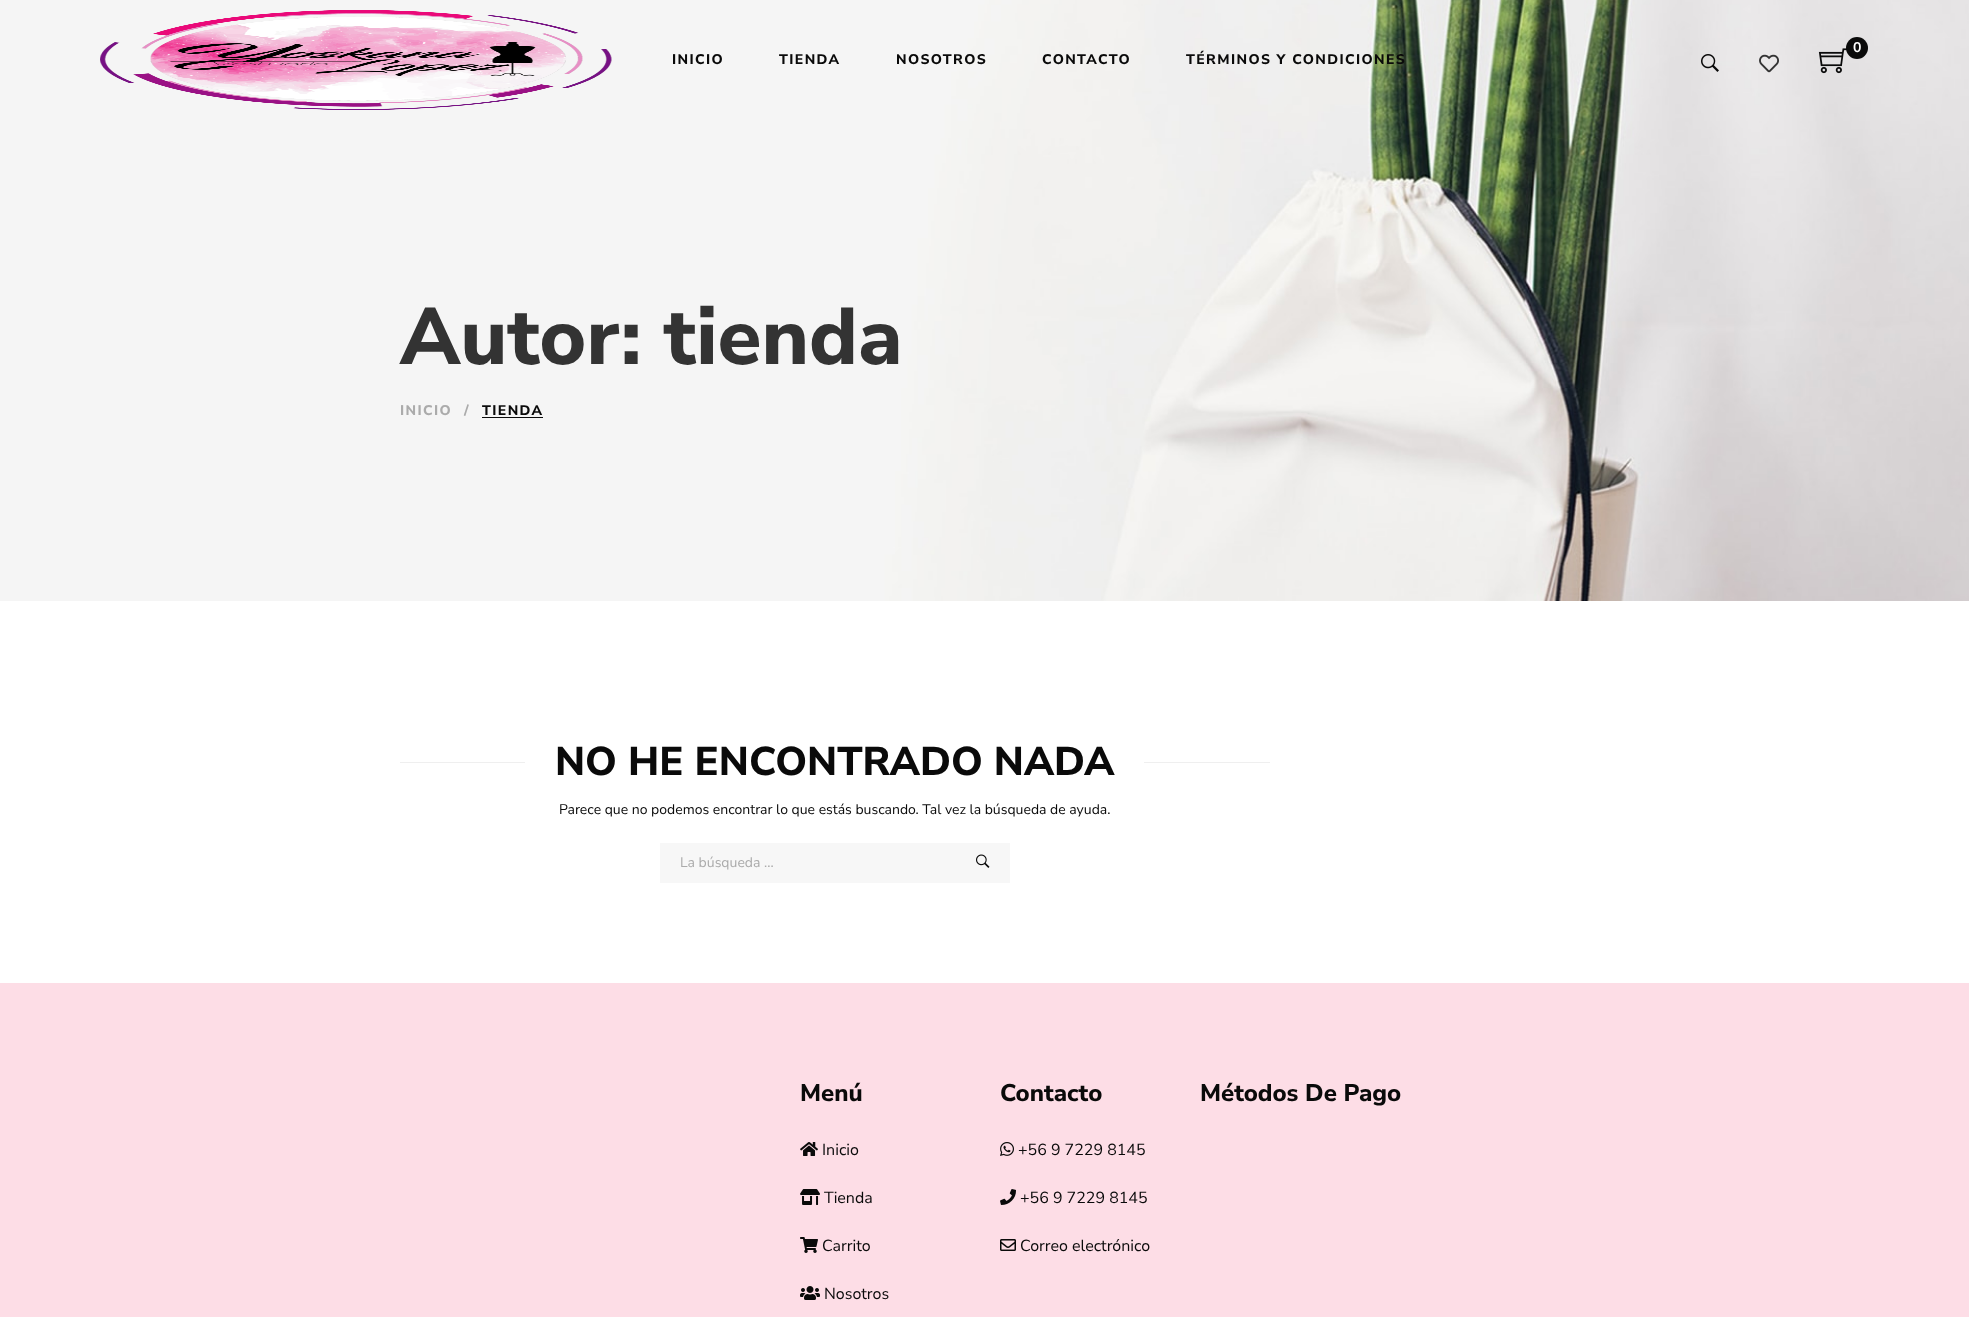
<svg xmlns="http://www.w3.org/2000/svg" width="1969" height="1317" viewBox="0 0 1969 1317">
  <style>
    .t1 { font: bold 14px Nunito Sans; fill: #fff; }
    .t2 { font: 800 14px Nunito Sans; letter-spacing: 1.4px; fill: #0a0a0a; }
    .t3 { font: 800 80px Nunito Sans; fill: #333; }
    .t4 { font: 800 14px Nunito Sans; letter-spacing: 1.4px; fill: #ababab; }
    .t5 { font: 800 40px Nunito Sans; fill: #0a0a0a; }
    .t6 { font: 14px Nunito Sans; fill: #0a0a0a; }
    .t7 { font: 14px Nunito Sans; fill: #ababab; }
    .t8 { font: 800 24px Nunito Sans; fill: #0a0a0a; }
    .t9 { font: 16px Nunito Sans; fill: #0a0a0a; }
  </style>
  <rect width="100%" height="100%" fill="#fff"/>
  <image x="0" y="0" width="1969" height="601" href="images/5.png"/>
  <image x="100" y="10" width="512" height="100" href="images/1.png"/>
  <image x="1818" y="48" width="29" height="26" href="images/2.png"/>
  <circle cx="1857" cy="48" r="11" fill="#0a0a0a"/>
  <text x="1853" y="52" class="t1">0</text>
  <image x="1701" y="54" width="18" height="18" href="images/3.png"/>
  <image x="1759" y="54" width="20" height="19" href="images/4.png"/>
  <text x="672" y="64" class="t2">INICIO</text>
  <text x="779" y="64" class="t2">TIENDA</text>
  <text x="896" y="64" class="t2">NOSOTROS</text>
  <text x="1042" y="64" class="t2">CONTACTO</text>
  <text x="1186" y="64" class="t2">TÉRMINOS Y CONDICIONES</text>
  <text x="400" y="364" class="t3">Autor: tienda</text>
  <text x="400" y="415" class="t4">INICIO</text>
  <text x="464" y="415" class="t4">/</text>
  <rect x="482" y="417" width="61" height="1" fill="#0a0a0a"/>
  <text x="482" y="415" class="t2">TIENDA</text>
  <rect x="400" y="762" width="125" height="1" fill="#efefef"/>
  <text x="555" y="775" class="t5">NO HE ENCONTRADO NADA</text>
  <rect x="1144" y="762" width="126" height="1" fill="#efefef"/>
  <text x="559" y="814" class="t6">Parece que no podemos encontrar lo que estás buscando. Tal vez la búsqueda de ayuda.</text>
  <rect x="660" y="843" width="350" height="40" fill="#f7f7f7"/>
  <text x="680" y="867" class="t7">La búsqueda ...</text>
  <image x="976" y="854" width="14" height="14" href="images/6.png"/>
  <rect x="0" y="983" width="1969" height="334" fill="#fddde6"/>
  <text x="800" y="1101" class="t8">Menú</text>
  <image x="800" y="1142" width="18" height="14" href="images/7.png"/>
  <text x="822" y="1155" class="t9">Inicio</text>
  <image x="800" y="1189" width="20" height="16" href="images/8.png"/>
  <text x="824" y="1203" class="t9">Tienda</text>
  <image x="800" y="1237" width="18" height="16" href="images/9.png"/>
  <text x="822" y="1251" class="t9">Carrito</text>
  <image x="800" y="1286" width="20" height="14" href="images/10.png"/>
  <text x="824" y="1299" class="t9">Nosotros</text>
  <text x="1000" y="1101" class="t8">Contacto</text>
  <image x="1000" y="1142" width="14" height="14" href="images/11.png"/>
  <text x="1018" y="1155" class="t9">+56 9 7229 8145</text>
  <image x="1000" y="1189" width="16" height="16" href="images/12.png"/>
  <text x="1020" y="1203" class="t9">+56 9 7229 8145</text>
  <image x="1000" y="1239" width="16" height="12" href="images/13.png"/>
  <text x="1020" y="1251" class="t9">Correo electrónico</text>
  <text x="1200" y="1101" class="t8">Métodos De Pago</text>
</svg>
